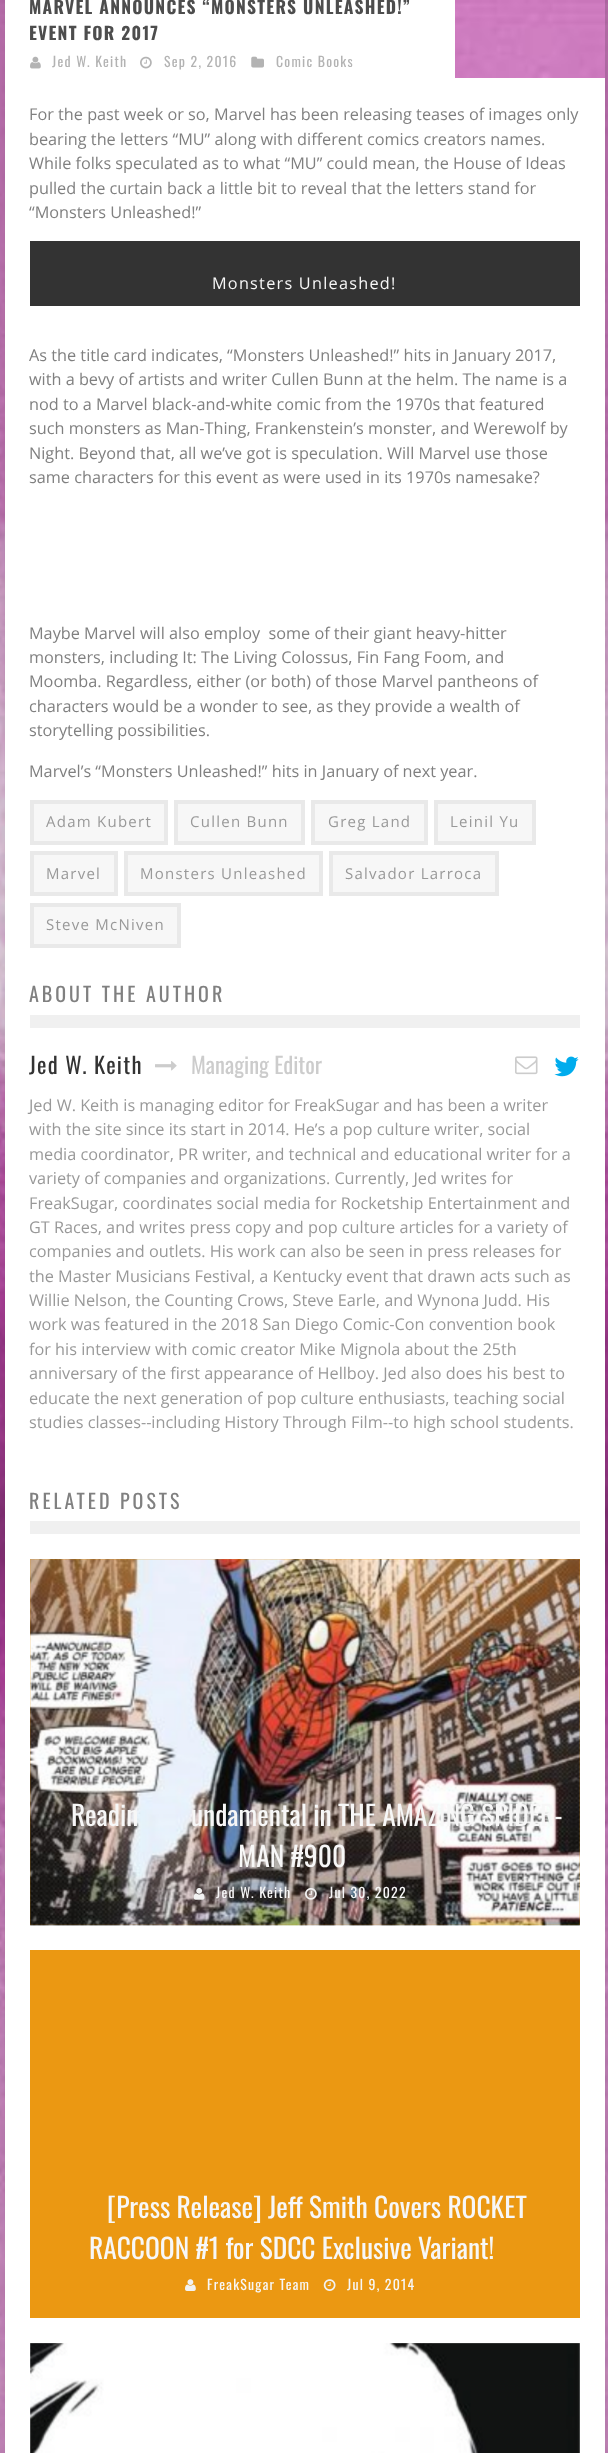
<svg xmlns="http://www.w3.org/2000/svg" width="608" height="2453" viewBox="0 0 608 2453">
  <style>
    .t1 { font: bold 17.5px Oswald; letter-spacing: 1.25px; fill: #4d4d4d; }
    .t2 { font: 13.75px Oswald; letter-spacing: 1.25px; fill: #b3b3b3; }
    .t3 { font: 16.25px Open Sans; fill: #808080; }
    .t4 { font: 16.25px Open Sans; letter-spacing: 1.25px; fill: #f7f7f7; }
    .t5 { font: 15px Open Sans; letter-spacing: 1.25px; fill: #999; }
    .t6 { font: 20px Oswald; letter-spacing: 3px; fill: #808080; }
    .t7 { font: 22.5px Oswald; letter-spacing: 1.25px; fill: #333; }
    .t8 { font: 22.5px Oswald; fill: #ccc; }
    .t9 { font: 16.25px Open Sans; fill: #999; }
    .t10 { font: 27.5px Oswald; fill: #f7f7f7; }
    .t11 { font: 13.75px Oswald; letter-spacing: 1.25px; fill: #f7f7f7; }
  </style>
  <defs>
    <clipPath id="clip1"><path d="M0 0H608V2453H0ZM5-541H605V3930H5Z" clip-rule="evenodd"/></clipPath>
  </defs>
  <rect width="100%" height="100%" fill="#fff"/>
  <image x="0" y="0" width="608" height="2453" href="images/1.png"/>
  <g clip-path="url(#clip1)">
    <rect x="-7" y="-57" width="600" height="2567" fill="#00000026" filter="blur(19px)"/>
    <rect x="18" y="-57" width="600" height="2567" fill="#00000026" filter="blur(19px)"/>
  </g>
  <rect x="5" y="0" width="450" height="78" fill="#fff"/>
  <text x="29" y="14" class="t1">MARVEL ANNOUNCES “MONSTERS UNLEASHED!”</text>
  <text x="29" y="40" class="t1">EVENT FOR 2017</text>
  <image x="30" y="56" width="11" height="13" href="images/2.png"/>
  <text x="52" y="67" class="t2">Jed W. Keith</text>
  <image x="140" y="56" width="12" height="13" href="images/3.png"/>
  <text x="164" y="67" class="t2">Sep 2, 2016</text>
  <image x="251" y="56" width="13" height="12" href="images/4.png"/>
  <text x="276" y="67" class="t2">Comic Books</text>
  <rect x="5" y="78" width="600" height="2375" fill="#fff"/>
  <text x="29" y="120" class="t3">For the past week or so, Marvel has been releasing teases of images only</text>
  <text x="29" y="145" class="t3">bearing the letters “MU” along with different comics creators names.</text>
  <text x="29" y="169" class="t3">While folks speculated as to what “MU” could mean, the House of Ideas</text>
  <text x="29" y="194" class="t3">pulled the curtain back a little bit to reveal that the letters stand for</text>
  <text x="29" y="218" class="t3">“Monsters Unleashed!”</text>
  <rect x="30" y="241" width="550" height="65" fill="#333"/>
  <text x="212" y="289" class="t4">Monsters Unleashed!</text>
  <text x="29" y="361" class="t3">As the title card indicates, “Monsters Unleashed!” hits in January 2017,</text>
  <text x="29" y="385" class="t3">with a bevy of artists and writer Cullen Bunn at the helm. The name is a</text>
  <text x="29" y="410" class="t3">nod to a Marvel black-and-white comic from the 1970s that featured</text>
  <text x="29" y="434" class="t3">such monsters as Man-Thing, Frankenstein’s monster, and Werewolf by</text>
  <text x="29" y="459" class="t3">Night. Beyond that, all we’ve got is speculation. Will Marvel use those</text>
  <text x="29" y="483" class="t3">same characters for this event as were used in its 1970s namesake?</text>
  <text x="29" y="639" class="t3" xml:space="preserve">Maybe Marvel will also employ  some of their giant heavy-hitter</text>
  <text x="29" y="663" class="t3">monsters, including It: The Living Colossus, Fin Fang Foom, and</text>
  <text x="29" y="687" class="t3">Moomba. Regardless, either (or both) of those Marvel pantheons of</text>
  <text x="29" y="712" class="t3">characters would be a wonder to see, as they provide a wealth of</text>
  <text x="29" y="736" class="t3">storytelling possibilities.</text>
  <text x="29" y="777" class="t3">Marvel’s “Monsters Unleashed!” hits in January of next year.</text>
  <rect x="32" y="802" width="134" height="41" fill="#f7f7f7" stroke="#e9e9e9" stroke-width="4"/>
  <text x="46" y="827" class="t5">Adam Kubert</text>
  <rect x="176" y="802" width="127" height="41" fill="#f7f7f7" stroke="#e9e9e9" stroke-width="4"/>
  <text x="190" y="827" class="t5">Cullen Bunn</text>
  <rect x="313" y="802" width="113" height="41" fill="#f7f7f7" stroke="#e9e9e9" stroke-width="4"/>
  <text x="328" y="827" class="t5">Greg Land</text>
  <rect x="436" y="802" width="98" height="41" fill="#f7f7f7" stroke="#e9e9e9" stroke-width="4"/>
  <text x="450" y="827" class="t5">Leinil Yu</text>
  <rect x="32" y="853" width="84" height="41" fill="#f7f7f7" stroke="#e9e9e9" stroke-width="4"/>
  <text x="46" y="879" class="t5">Marvel</text>
  <rect x="126" y="853" width="195" height="41" fill="#f7f7f7" stroke="#e9e9e9" stroke-width="4"/>
  <text x="140" y="879" class="t5">Monsters Unleashed</text>
  <rect x="331" y="853" width="166" height="41" fill="#f7f7f7" stroke="#e9e9e9" stroke-width="4"/>
  <text x="345" y="879" class="t5">Salvador Larroca</text>
  <rect x="32" y="905" width="147" height="41" fill="#f7f7f7" stroke="#e9e9e9" stroke-width="4"/>
  <text x="46" y="930" class="t5">Steve McNiven</text>
  <rect x="30" y="1015" width="550" height="13" fill="#f0f0f0"/>
  <text x="29" y="1002" class="t6">ABOUT THE AUTHOR</text>
  <text x="29" y="1074" class="t7">Jed W. Keith</text>
  <image x="155" y="1061" width="22" height="10" href="images/5.png"/>
  <text x="191" y="1074" class="t8">Managing Editor</text>
  <image x="515" y="1056" width="23" height="19" href="images/6.png"/>
  <image x="554" y="1056" width="25" height="21" href="images/7.png"/>
  <text x="29" y="1111" class="t9">Jed W. Keith is managing editor for FreakSugar and has been a writer</text>
  <text x="29" y="1135" class="t9">with the site since its start in 2014. He’s a pop culture writer, social</text>
  <text x="29" y="1160" class="t9">media coordinator, PR writer, and technical and educational writer for a</text>
  <text x="29" y="1184" class="t9">variety of companies and organizations. Currently, Jed writes for</text>
  <text x="29" y="1209" class="t9">FreakSugar, coordinates social media for Rocketship Entertainment and</text>
  <text x="29" y="1233" class="t9">GT Races, and writes press copy and pop culture articles for a variety of</text>
  <text x="29" y="1257" class="t9">companies and outlets. His work can also be seen in press releases for</text>
  <text x="29" y="1282" class="t9">the Master Musicians Festival, a Kentucky event that drawn acts such as</text>
  <text x="29" y="1306" class="t9">Willie Nelson, the Counting Crows, Steve Earle, and Wynona Judd. His</text>
  <text x="29" y="1330" class="t9">work was featured in the 2018 San Diego Comic-Con convention book</text>
  <text x="29" y="1355" class="t9">for his interview with comic creator Mike Mignola about the 25th</text>
  <text x="29" y="1379" class="t9">anniversary of the first appearance of Hellboy. Jed also does his best to</text>
  <text x="29" y="1404" class="t9">educate the next generation of pop culture enthusiasts, teaching social</text>
  <text x="29" y="1428" class="t9">studies classes--including History Through Film--to high school students.</text>
  <rect x="30" y="1521" width="550" height="13" fill="#f0f0f0"/>
  <text x="29" y="1509" class="t6">RELATED POSTS</text>
  <rect x="30" y="1559" width="550" height="366" fill="#eb9812"/>
  <image x="30" y="1559" width="550" height="367" href="images/8.png"/>
  <text x="71" y="1826" class="t10">Readin</text>
  <text x="191" y="1826" class="t10">undamental in THE AMAZING SPIDER-</text>
  <text x="238" y="1867" class="t10">MAN #900</text>
  <image x="193" y="1888" width="12" height="12" href="images/9.png"/>
  <text x="216" y="1898" class="t11">Jed W. Keith</text>
  <image x="305" y="1888" width="12" height="12" href="images/10.png"/>
  <text x="329" y="1898" class="t11">Jul 30, 2022</text>
  <rect x="30" y="1950" width="550" height="368" fill="#eb9812"/>
  <text x="107" y="2218" class="t10">[Press Release] Jeff Smith Covers ROCKET</text>
  <text x="89" y="2259" class="t10">RACCOON #1 for SDCC Exclusive Variant!</text>
  <image x="185" y="2279" width="11" height="12" href="images/11.png"/>
  <text x="207" y="2290" class="t11">FreakSugar Team</text>
  <image x="323" y="2279" width="13" height="12" href="images/12.png"/>
  <text x="347" y="2290" class="t11">Jul 9, 2014</text>
  <image x="30" y="2343" width="550" height="110" href="images/13.png"/>
</svg>
